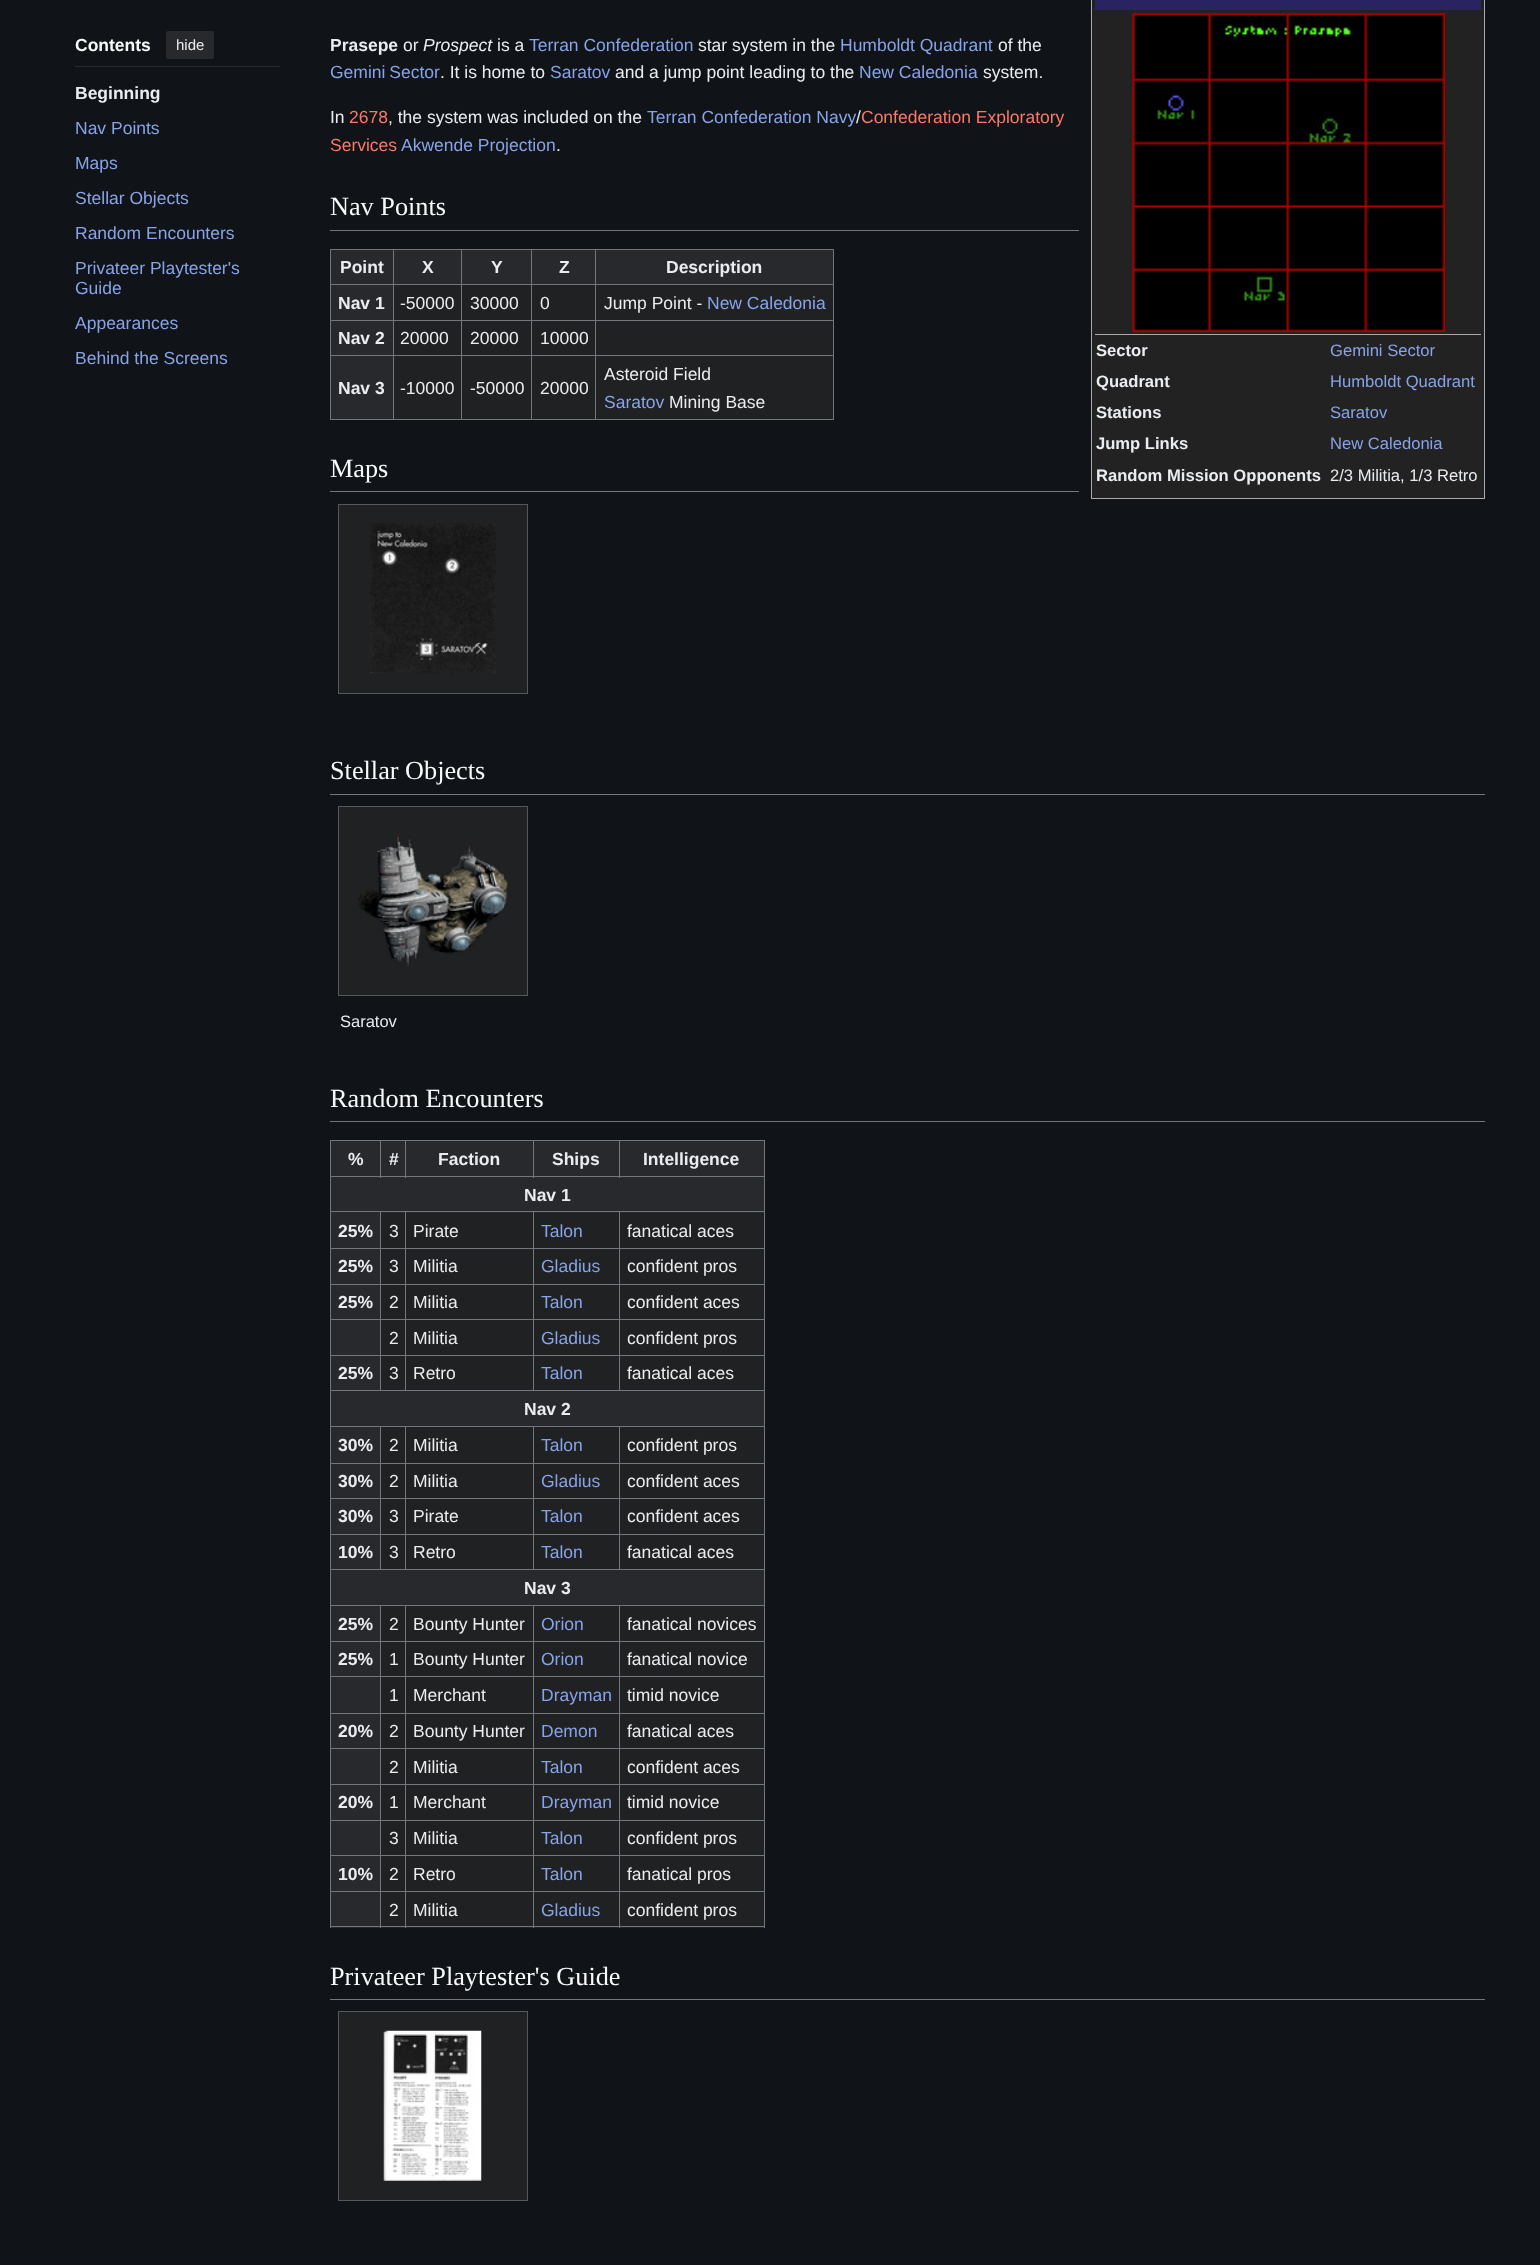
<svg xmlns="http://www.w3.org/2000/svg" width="1540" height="2265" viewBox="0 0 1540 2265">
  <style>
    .t1 { font: bold 17.5px Liberation Sans; fill: #f8f9fa; }
    .t2 { font: 15px Liberation Sans; fill: #eaecf0; }
    .t3 { font: bold 17.5px Liberation Sans; fill: #eaecf0; }
    .t4 { font: 17.5px Liberation Sans; fill: #88a3e8; }
    .t5 { font: 17.5px Liberation Sans; fill: #eaecf0; }
    .t6 { font: italic 17.5px Liberation Sans; fill: #eaecf0; }
    .t7 { font: 17.5px Liberation Sans; fill: #fd7865; }
    .t8 { font: 26.25px Liberation Serif; fill: #f8f9fa; }
    .t9 { font: bold 16.6px Liberation Sans; fill: #eaecf0; }
    .t10 { font: 16.6px Liberation Sans; fill: #88a3e8; }
    .t11 { font: 16.6px Liberation Sans; fill: #eaecf0; }
    .t12 { font: 16.5px Liberation Sans; fill: #eaecf0; }
  </style>
  <rect width="100%" height="100%" fill="#101418"/>
  <rect x="75" y="66" width="205" height="1" fill="#27292d"/>
  <text x="75" y="51" class="t1">Contents</text>
  <rect x="166" y="31" width="48" height="28" rx="2.5" fill="#27292d"/>
  <text x="176" y="50" class="t2">hide</text>
  <text x="75" y="99" class="t3">Beginning</text>
  <text x="75" y="134" class="t4">Nav Points</text>
  <text x="75" y="169" class="t4">Maps</text>
  <text x="75" y="204" class="t4">Stellar Objects</text>
  <text x="75" y="239" class="t4">Random Encounters</text>
  <text x="75" y="274" class="t4">Privateer Playtester's</text>
  <text x="75" y="294" class="t4">Guide</text>
  <text x="75" y="329" class="t4">Appearances</text>
  <text x="75" y="364" class="t4">Behind the Screens</text>
  <text x="330" y="51" class="t3">Prasepe</text>
  <text x="403" y="51" class="t5">or</text>
  <text x="423" y="51" class="t6">Prospect</text>
  <text x="497" y="51" class="t5">is a</text>
  <text x="529" y="51" class="t4">Terran Confederation</text>
  <text x="698" y="51" class="t5">star system in the</text>
  <text x="840" y="51" class="t4">Humboldt Quadrant</text>
  <text x="998" y="51" class="t5">of the</text>
  <text x="330" y="78" word-spacing="-1" class="t4">Gemini Sector</text>
  <text x="440" y="78" class="t5">. It is home to</text>
  <text x="550" y="78" class="t4">Saratov</text>
  <text x="615" y="78" class="t5">and a jump point leading to the</text>
  <text x="859" y="78" class="t4">New Caledonia</text>
  <text x="983" y="78" class="t5">system.</text>
  <text x="330" y="123" class="t5">In</text>
  <text x="349" y="123" class="t7">2678</text>
  <text x="388" y="123" class="t5">, the system was included on the</text>
  <text x="647" y="123" class="t4">Terran Confederation Navy</text>
  <text x="856" y="123" class="t5">/</text>
  <text x="861" y="123" class="t7">Confederation Exploratory</text>
  <text x="330" y="151" class="t7">Services</text>
  <text x="401" y="151" class="t4">Akwende Projection</text>
  <text x="556" y="151" class="t5">.</text>
  <rect x="330" y="230" width="749" height="1" fill="#72777d"/>
  <text x="330" y="215" class="t8">Nav Points</text>
  <rect x="394" y="285" width="439" height="134" fill="#202122"/>
  <rect x="330" y="249" width="504" height="1" fill="#72777d"/>
  <rect x="833" y="249" width="1" height="171" fill="#72777d"/>
  <rect x="330" y="419" width="504" height="1" fill="#72777d"/>
  <rect x="330" y="249" width="1" height="171" fill="#72777d"/>
  <rect x="331" y="250" width="62" height="34" fill="#27292d"/>
  <text x="340" y="273" class="t3">Point</text>
  <rect x="394" y="250" width="201" height="34" fill="#27292d"/>
  <rect x="595" y="284" width="239" height="1" fill="#72777d"/>
  <rect x="595" y="320" width="239" height="1" fill="#72777d"/>
  <rect x="595" y="355" width="239" height="1" fill="#72777d"/>
  <rect x="595" y="355" width="1" height="65" fill="#72777d"/>
  <rect x="531" y="355" width="65" height="1" fill="#72777d"/>
  <rect x="595" y="320" width="1" height="36" fill="#72777d"/>
  <rect x="531" y="320" width="65" height="1" fill="#72777d"/>
  <rect x="595" y="284" width="1" height="37" fill="#72777d"/>
  <rect x="531" y="284" width="65" height="1" fill="#72777d"/>
  <rect x="531" y="355" width="1" height="65" fill="#72777d"/>
  <rect x="461" y="355" width="72" height="1" fill="#72777d"/>
  <rect x="531" y="320" width="1" height="36" fill="#72777d"/>
  <rect x="461" y="320" width="72" height="1" fill="#72777d"/>
  <rect x="531" y="284" width="1" height="37" fill="#72777d"/>
  <rect x="461" y="284" width="72" height="1" fill="#72777d"/>
  <rect x="461" y="355" width="1" height="65" fill="#72777d"/>
  <rect x="393" y="355" width="70" height="1" fill="#72777d"/>
  <rect x="461" y="320" width="1" height="36" fill="#72777d"/>
  <rect x="393" y="320" width="70" height="1" fill="#72777d"/>
  <rect x="461" y="284" width="1" height="37" fill="#72777d"/>
  <rect x="393" y="284" width="70" height="1" fill="#72777d"/>
  <rect x="393" y="355" width="1" height="65" fill="#72777d"/>
  <rect x="330" y="355" width="64" height="1" fill="#72777d"/>
  <rect x="393" y="320" width="1" height="36" fill="#72777d"/>
  <rect x="330" y="320" width="64" height="1" fill="#72777d"/>
  <rect x="393" y="284" width="1" height="37" fill="#72777d"/>
  <rect x="330" y="284" width="64" height="1" fill="#72777d"/>
  <rect x="393" y="249" width="1" height="36" fill="#72777d"/>
  <text x="422" y="273" class="t3">X</text>
  <rect x="461" y="249" width="1" height="36" fill="#72777d"/>
  <text x="491" y="273" class="t3">Y</text>
  <rect x="531" y="249" width="1" height="36" fill="#72777d"/>
  <text x="559" y="273" class="t3">Z</text>
  <rect x="596" y="250" width="237" height="34" fill="#27292d"/>
  <rect x="595" y="249" width="1" height="36" fill="#72777d"/>
  <text x="666" y="273" class="t3">Description</text>
  <rect x="331" y="285" width="62" height="35" fill="#27292d"/>
  <text x="338" y="309" class="t3">Nav 1</text>
  <text x="400" y="309" class="t5">-50000</text>
  <text x="470" y="309" class="t5">30000</text>
  <text x="540" y="309" class="t5">0</text>
  <text x="604" y="309" class="t5">Jump Point -</text>
  <text x="707" y="309" class="t4">New Caledonia</text>
  <rect x="331" y="321" width="62" height="34" fill="#27292d"/>
  <text x="338" y="344" class="t3">Nav 2</text>
  <text x="400" y="344" class="t5">20000</text>
  <text x="470" y="344" class="t5">20000</text>
  <text x="540" y="344" class="t5">10000</text>
  <rect x="331" y="356" width="62" height="63" fill="#27292d"/>
  <text x="338" y="394" class="t3">Nav 3</text>
  <text x="400" y="394" class="t5">-10000</text>
  <text x="470" y="394" class="t5">-50000</text>
  <text x="540" y="394" class="t5">20000</text>
  <text x="604" y="380" class="t5">Asteroid Field</text>
  <text x="604" y="408" class="t4">Saratov</text>
  <text x="669" y="408" class="t5">Mining Base</text>
  <rect x="1091.5" y="-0.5" width="393" height="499" fill="#222" stroke="#aaa"/>
  <rect x="1095" y="0" width="386" height="10" fill="#292461"/>
  <rect x="1095" y="334" width="386" height="1" fill="#aaa"/>
  <image x="1132" y="13" width="313" height="319" href="images/1.png"/>
  <text x="1096" y="356" class="t9">Sector</text>
  <text x="1330" y="356" class="t10">Gemini Sector</text>
  <text x="1096" y="387" class="t9">Quadrant</text>
  <text x="1330" y="387" class="t10">Humboldt Quadrant</text>
  <text x="1096" y="418" class="t9">Stations</text>
  <text x="1330" y="418" class="t10">Saratov</text>
  <text x="1096" y="449" class="t9">Jump Links</text>
  <text x="1330" y="449" class="t10">New Caledonia</text>
  <text x="1096" y="481" class="t9">Random Mission Opponents</text>
  <text x="1330" y="481" class="t11">2/3 Militia, 1/3 Retro</text>
  <rect x="330" y="491" width="749" height="1" fill="#72777d"/>
  <text x="330" y="477" class="t8">Maps</text>
  <rect x="338.5" y="504.5" width="189" height="189" fill="#202122" stroke="#54595d"/>
  <image x="370" y="523" width="126" height="151" href="images/2.png"/>
  <rect x="330" y="794" width="1155" height="1" fill="#72777d"/>
  <text x="330" y="779" class="t8">Stellar Objects</text>
  <rect x="338.5" y="806.5" width="189" height="189" fill="#202122" stroke="#54595d"/>
  <image x="357" y="834" width="151" height="133" href="images/3.png"/>
  <text x="340" y="1027" class="t12">Saratov</text>
  <rect x="330" y="1121" width="1155" height="1" fill="#72777d"/>
  <text x="330" y="1107" class="t8">Random Encounters</text>
  <rect x="381" y="1213" width="383" height="715" fill="#202122"/>
  <rect x="330" y="1140" width="435" height="1" fill="#72777d"/>
  <rect x="764" y="1140" width="1" height="788" fill="#72777d"/>
  <rect x="331" y="1892" width="49" height="36" fill="#27292d"/>
  <rect x="330" y="1926" width="435" height="1" fill="#72777d"/>
  <rect x="330" y="1140" width="1" height="788" fill="#72777d"/>
  <rect x="331" y="1141" width="49" height="35" fill="#27292d"/>
  <text x="348" y="1165" class="t3">%</text>
  <rect x="381" y="1141" width="24" height="35" fill="#27292d"/>
  <rect x="331" y="1177" width="433" height="36" fill="#27292d"/>
  <rect x="330" y="1176" width="435" height="1" fill="#72777d"/>
  <rect x="380" y="1140" width="1" height="38" fill="#72777d"/>
  <text x="389" y="1165" class="t3">#</text>
  <rect x="406" y="1141" width="127" height="35" fill="#27292d"/>
  <rect x="405" y="1140" width="1" height="38" fill="#72777d"/>
  <text x="438" y="1165" class="t3">Faction</text>
  <rect x="534" y="1141" width="85" height="35" fill="#27292d"/>
  <rect x="533" y="1140" width="1" height="38" fill="#72777d"/>
  <text x="552" y="1165" class="t3">Ships</text>
  <rect x="620" y="1141" width="144" height="35" fill="#27292d"/>
  <rect x="619" y="1140" width="1" height="38" fill="#72777d"/>
  <text x="643" y="1165" class="t3">Intelligence</text>
  <text x="524" y="1201" class="t3">Nav 1</text>
  <rect x="331" y="1213" width="49" height="35" fill="#27292d"/>
  <rect x="619" y="1211" width="146" height="1" fill="#72777d"/>
  <rect x="619" y="1248" width="146" height="1" fill="#72777d"/>
  <rect x="619" y="1284" width="146" height="1" fill="#72777d"/>
  <rect x="619" y="1319" width="146" height="1" fill="#72777d"/>
  <rect x="619" y="1355" width="146" height="1" fill="#72777d"/>
  <rect x="330" y="1390" width="435" height="1" fill="#72777d"/>
  <rect x="619" y="1355" width="1" height="36" fill="#72777d"/>
  <rect x="533" y="1355" width="87" height="1" fill="#72777d"/>
  <rect x="619" y="1319" width="1" height="37" fill="#72777d"/>
  <rect x="533" y="1319" width="87" height="1" fill="#72777d"/>
  <rect x="619" y="1284" width="1" height="36" fill="#72777d"/>
  <rect x="533" y="1284" width="87" height="1" fill="#72777d"/>
  <rect x="619" y="1248" width="1" height="37" fill="#72777d"/>
  <rect x="533" y="1248" width="87" height="1" fill="#72777d"/>
  <rect x="619" y="1211" width="1" height="38" fill="#72777d"/>
  <rect x="533" y="1211" width="87" height="1" fill="#72777d"/>
  <rect x="533" y="1355" width="1" height="36" fill="#72777d"/>
  <rect x="405" y="1355" width="129" height="1" fill="#72777d"/>
  <rect x="533" y="1319" width="1" height="37" fill="#72777d"/>
  <rect x="405" y="1319" width="129" height="1" fill="#72777d"/>
  <rect x="533" y="1284" width="1" height="36" fill="#72777d"/>
  <rect x="405" y="1284" width="129" height="1" fill="#72777d"/>
  <rect x="533" y="1248" width="1" height="37" fill="#72777d"/>
  <rect x="405" y="1248" width="129" height="1" fill="#72777d"/>
  <rect x="533" y="1211" width="1" height="38" fill="#72777d"/>
  <rect x="405" y="1211" width="129" height="1" fill="#72777d"/>
  <rect x="405" y="1355" width="1" height="36" fill="#72777d"/>
  <rect x="380" y="1355" width="26" height="1" fill="#72777d"/>
  <rect x="405" y="1319" width="1" height="37" fill="#72777d"/>
  <rect x="380" y="1319" width="26" height="1" fill="#72777d"/>
  <rect x="405" y="1284" width="1" height="36" fill="#72777d"/>
  <rect x="380" y="1284" width="26" height="1" fill="#72777d"/>
  <rect x="405" y="1248" width="1" height="37" fill="#72777d"/>
  <rect x="380" y="1248" width="26" height="1" fill="#72777d"/>
  <rect x="405" y="1211" width="1" height="38" fill="#72777d"/>
  <rect x="380" y="1211" width="26" height="1" fill="#72777d"/>
  <rect x="380" y="1355" width="1" height="36" fill="#72777d"/>
  <rect x="330" y="1355" width="51" height="1" fill="#72777d"/>
  <rect x="380" y="1319" width="1" height="37" fill="#72777d"/>
  <rect x="330" y="1319" width="51" height="1" fill="#72777d"/>
  <rect x="380" y="1284" width="1" height="36" fill="#72777d"/>
  <rect x="330" y="1284" width="51" height="1" fill="#72777d"/>
  <rect x="380" y="1248" width="1" height="37" fill="#72777d"/>
  <rect x="330" y="1248" width="51" height="1" fill="#72777d"/>
  <rect x="380" y="1211" width="1" height="38" fill="#72777d"/>
  <rect x="330" y="1211" width="51" height="1" fill="#72777d"/>
  <text x="338" y="1237" class="t3">25%</text>
  <text x="389" y="1237" class="t5">3</text>
  <text x="413" y="1237" class="t5">Pirate</text>
  <text x="541" y="1237" class="t4">Talon</text>
  <text x="627" y="1237" class="t5">fanatical aces</text>
  <rect x="331" y="1249" width="49" height="35" fill="#27292d"/>
  <text x="338" y="1272" class="t3">25%</text>
  <text x="389" y="1272" class="t5">3</text>
  <text x="413" y="1272" class="t5">Militia</text>
  <text x="541" y="1272" class="t4">Gladius</text>
  <text x="627" y="1272" class="t5">confident pros</text>
  <rect x="331" y="1285" width="49" height="34" fill="#27292d"/>
  <text x="338" y="1308" class="t3">25%</text>
  <text x="389" y="1308" class="t5">2</text>
  <text x="413" y="1308" class="t5">Militia</text>
  <text x="541" y="1308" class="t4">Talon</text>
  <text x="627" y="1308" class="t5">confident aces</text>
  <rect x="331" y="1320" width="49" height="35" fill="#27292d"/>
  <text x="389" y="1344" class="t5">2</text>
  <text x="413" y="1344" class="t5">Militia</text>
  <text x="541" y="1344" class="t4">Gladius</text>
  <text x="627" y="1344" class="t5">confident pros</text>
  <rect x="331" y="1356" width="49" height="34" fill="#27292d"/>
  <text x="338" y="1379" class="t3">25%</text>
  <text x="389" y="1379" class="t5">3</text>
  <text x="413" y="1379" class="t5">Retro</text>
  <text x="541" y="1379" class="t4">Talon</text>
  <text x="627" y="1379" class="t5">fanatical aces</text>
  <rect x="331" y="1391" width="433" height="35" fill="#27292d"/>
  <text x="524" y="1415" class="t3">Nav 2</text>
  <rect x="331" y="1427" width="49" height="36" fill="#27292d"/>
  <rect x="619" y="1426" width="146" height="1" fill="#72777d"/>
  <rect x="619" y="1463" width="146" height="1" fill="#72777d"/>
  <rect x="619" y="1498" width="146" height="1" fill="#72777d"/>
  <rect x="619" y="1534" width="146" height="1" fill="#72777d"/>
  <rect x="330" y="1569" width="435" height="1" fill="#72777d"/>
  <rect x="619" y="1534" width="1" height="36" fill="#72777d"/>
  <rect x="533" y="1534" width="87" height="1" fill="#72777d"/>
  <rect x="619" y="1498" width="1" height="37" fill="#72777d"/>
  <rect x="533" y="1498" width="87" height="1" fill="#72777d"/>
  <rect x="619" y="1463" width="1" height="36" fill="#72777d"/>
  <rect x="533" y="1463" width="87" height="1" fill="#72777d"/>
  <rect x="619" y="1426" width="1" height="38" fill="#72777d"/>
  <rect x="533" y="1426" width="87" height="1" fill="#72777d"/>
  <rect x="533" y="1534" width="1" height="36" fill="#72777d"/>
  <rect x="405" y="1534" width="129" height="1" fill="#72777d"/>
  <rect x="533" y="1498" width="1" height="37" fill="#72777d"/>
  <rect x="405" y="1498" width="129" height="1" fill="#72777d"/>
  <rect x="533" y="1463" width="1" height="36" fill="#72777d"/>
  <rect x="405" y="1463" width="129" height="1" fill="#72777d"/>
  <rect x="533" y="1426" width="1" height="38" fill="#72777d"/>
  <rect x="405" y="1426" width="129" height="1" fill="#72777d"/>
  <rect x="405" y="1534" width="1" height="36" fill="#72777d"/>
  <rect x="380" y="1534" width="26" height="1" fill="#72777d"/>
  <rect x="405" y="1498" width="1" height="37" fill="#72777d"/>
  <rect x="380" y="1498" width="26" height="1" fill="#72777d"/>
  <rect x="405" y="1463" width="1" height="36" fill="#72777d"/>
  <rect x="380" y="1463" width="26" height="1" fill="#72777d"/>
  <rect x="405" y="1426" width="1" height="38" fill="#72777d"/>
  <rect x="380" y="1426" width="26" height="1" fill="#72777d"/>
  <rect x="380" y="1534" width="1" height="36" fill="#72777d"/>
  <rect x="330" y="1534" width="51" height="1" fill="#72777d"/>
  <rect x="380" y="1498" width="1" height="37" fill="#72777d"/>
  <rect x="330" y="1498" width="51" height="1" fill="#72777d"/>
  <rect x="380" y="1463" width="1" height="36" fill="#72777d"/>
  <rect x="330" y="1463" width="51" height="1" fill="#72777d"/>
  <rect x="380" y="1426" width="1" height="38" fill="#72777d"/>
  <rect x="330" y="1426" width="51" height="1" fill="#72777d"/>
  <text x="338" y="1451" class="t3">30%</text>
  <text x="389" y="1451" class="t5">2</text>
  <text x="413" y="1451" class="t5">Militia</text>
  <text x="541" y="1451" class="t4">Talon</text>
  <text x="627" y="1451" class="t5">confident pros</text>
  <rect x="331" y="1464" width="49" height="34" fill="#27292d"/>
  <text x="338" y="1487" class="t3">30%</text>
  <text x="389" y="1487" class="t5">2</text>
  <text x="413" y="1487" class="t5">Militia</text>
  <text x="541" y="1487" class="t4">Gladius</text>
  <text x="627" y="1487" class="t5">confident aces</text>
  <rect x="331" y="1499" width="49" height="35" fill="#27292d"/>
  <text x="338" y="1522" class="t3">30%</text>
  <text x="389" y="1522" class="t5">3</text>
  <text x="413" y="1522" class="t5">Pirate</text>
  <text x="541" y="1522" class="t4">Talon</text>
  <text x="627" y="1522" class="t5">confident aces</text>
  <rect x="331" y="1535" width="49" height="34" fill="#27292d"/>
  <text x="338" y="1558" class="t3">10%</text>
  <text x="389" y="1558" class="t5">3</text>
  <text x="413" y="1558" class="t5">Retro</text>
  <text x="541" y="1558" class="t4">Talon</text>
  <text x="627" y="1558" class="t5">fanatical aces</text>
  <rect x="331" y="1570" width="433" height="35" fill="#27292d"/>
  <text x="524" y="1594" class="t3">Nav 3</text>
  <rect x="331" y="1606" width="49" height="35" fill="#27292d"/>
  <rect x="619" y="1605" width="146" height="1" fill="#72777d"/>
  <rect x="619" y="1641" width="146" height="1" fill="#72777d"/>
  <rect x="619" y="1676" width="146" height="1" fill="#72777d"/>
  <rect x="619" y="1713" width="146" height="1" fill="#72777d"/>
  <rect x="619" y="1748" width="146" height="1" fill="#72777d"/>
  <rect x="619" y="1784" width="146" height="1" fill="#72777d"/>
  <rect x="619" y="1820" width="146" height="1" fill="#72777d"/>
  <rect x="619" y="1855" width="146" height="1" fill="#72777d"/>
  <rect x="619" y="1891" width="146" height="1" fill="#72777d"/>
  <rect x="619" y="1891" width="1" height="37" fill="#72777d"/>
  <rect x="533" y="1891" width="87" height="1" fill="#72777d"/>
  <rect x="619" y="1855" width="1" height="38" fill="#72777d"/>
  <rect x="533" y="1855" width="87" height="1" fill="#72777d"/>
  <rect x="619" y="1820" width="1" height="36" fill="#72777d"/>
  <rect x="533" y="1820" width="87" height="1" fill="#72777d"/>
  <rect x="619" y="1784" width="1" height="37" fill="#72777d"/>
  <rect x="533" y="1784" width="87" height="1" fill="#72777d"/>
  <rect x="619" y="1748" width="1" height="37" fill="#72777d"/>
  <rect x="533" y="1748" width="87" height="1" fill="#72777d"/>
  <rect x="619" y="1713" width="1" height="36" fill="#72777d"/>
  <rect x="533" y="1713" width="87" height="1" fill="#72777d"/>
  <rect x="619" y="1676" width="1" height="38" fill="#72777d"/>
  <rect x="533" y="1676" width="87" height="1" fill="#72777d"/>
  <rect x="619" y="1641" width="1" height="37" fill="#72777d"/>
  <rect x="533" y="1641" width="87" height="1" fill="#72777d"/>
  <rect x="619" y="1605" width="1" height="38" fill="#72777d"/>
  <rect x="533" y="1605" width="87" height="1" fill="#72777d"/>
  <rect x="533" y="1891" width="1" height="37" fill="#72777d"/>
  <rect x="405" y="1891" width="129" height="1" fill="#72777d"/>
  <rect x="533" y="1855" width="1" height="38" fill="#72777d"/>
  <rect x="405" y="1855" width="129" height="1" fill="#72777d"/>
  <rect x="533" y="1820" width="1" height="36" fill="#72777d"/>
  <rect x="405" y="1820" width="129" height="1" fill="#72777d"/>
  <rect x="533" y="1784" width="1" height="37" fill="#72777d"/>
  <rect x="405" y="1784" width="129" height="1" fill="#72777d"/>
  <rect x="533" y="1748" width="1" height="37" fill="#72777d"/>
  <rect x="405" y="1748" width="129" height="1" fill="#72777d"/>
  <rect x="533" y="1713" width="1" height="36" fill="#72777d"/>
  <rect x="405" y="1713" width="129" height="1" fill="#72777d"/>
  <rect x="533" y="1676" width="1" height="38" fill="#72777d"/>
  <rect x="405" y="1676" width="129" height="1" fill="#72777d"/>
  <rect x="533" y="1641" width="1" height="37" fill="#72777d"/>
  <rect x="405" y="1641" width="129" height="1" fill="#72777d"/>
  <rect x="533" y="1605" width="1" height="38" fill="#72777d"/>
  <rect x="405" y="1605" width="129" height="1" fill="#72777d"/>
  <rect x="405" y="1891" width="1" height="37" fill="#72777d"/>
  <rect x="380" y="1891" width="26" height="1" fill="#72777d"/>
  <rect x="405" y="1855" width="1" height="38" fill="#72777d"/>
  <rect x="380" y="1855" width="26" height="1" fill="#72777d"/>
  <rect x="405" y="1820" width="1" height="36" fill="#72777d"/>
  <rect x="380" y="1820" width="26" height="1" fill="#72777d"/>
  <rect x="405" y="1784" width="1" height="37" fill="#72777d"/>
  <rect x="380" y="1784" width="26" height="1" fill="#72777d"/>
  <rect x="405" y="1748" width="1" height="37" fill="#72777d"/>
  <rect x="380" y="1748" width="26" height="1" fill="#72777d"/>
  <rect x="405" y="1713" width="1" height="36" fill="#72777d"/>
  <rect x="380" y="1713" width="26" height="1" fill="#72777d"/>
  <rect x="405" y="1676" width="1" height="38" fill="#72777d"/>
  <rect x="380" y="1676" width="26" height="1" fill="#72777d"/>
  <rect x="405" y="1641" width="1" height="37" fill="#72777d"/>
  <rect x="380" y="1641" width="26" height="1" fill="#72777d"/>
  <rect x="405" y="1605" width="1" height="38" fill="#72777d"/>
  <rect x="380" y="1605" width="26" height="1" fill="#72777d"/>
  <rect x="331" y="1642" width="49" height="71" fill="#27292d"/>
  <rect x="380" y="1891" width="1" height="37" fill="#72777d"/>
  <rect x="330" y="1891" width="51" height="1" fill="#72777d"/>
  <rect x="380" y="1855" width="1" height="38" fill="#72777d"/>
  <rect x="330" y="1855" width="51" height="1" fill="#72777d"/>
  <rect x="380" y="1820" width="1" height="36" fill="#72777d"/>
  <rect x="330" y="1820" width="51" height="1" fill="#72777d"/>
  <rect x="380" y="1784" width="1" height="37" fill="#72777d"/>
  <rect x="330" y="1784" width="51" height="1" fill="#72777d"/>
  <rect x="380" y="1748" width="1" height="37" fill="#72777d"/>
  <rect x="330" y="1748" width="51" height="1" fill="#72777d"/>
  <rect x="380" y="1713" width="1" height="36" fill="#72777d"/>
  <rect x="330" y="1713" width="51" height="1" fill="#72777d"/>
  <rect x="380" y="1676" width="1" height="38" fill="#72777d"/>
  <rect x="330" y="1676" width="51" height="1" fill="#72777d"/>
  <rect x="380" y="1641" width="1" height="37" fill="#72777d"/>
  <rect x="330" y="1641" width="51" height="1" fill="#72777d"/>
  <rect x="380" y="1605" width="1" height="38" fill="#72777d"/>
  <rect x="330" y="1605" width="51" height="1" fill="#72777d"/>
  <text x="338" y="1630" class="t3">25%</text>
  <text x="389" y="1630" class="t5">2</text>
  <text x="413" y="1630" class="t5">Bounty Hunter</text>
  <text x="541" y="1630" class="t4">Orion</text>
  <text x="627" y="1630" class="t5">fanatical novices</text>
  <text x="338" y="1665" class="t3">25%</text>
  <text x="389" y="1665" class="t5">1</text>
  <text x="413" y="1665" class="t5">Bounty Hunter</text>
  <text x="541" y="1665" class="t4">Orion</text>
  <text x="627" y="1665" class="t5">fanatical novice</text>
  <text x="389" y="1701" class="t5">1</text>
  <text x="413" y="1701" class="t5">Merchant</text>
  <text x="541" y="1701" class="t4">Drayman</text>
  <text x="627" y="1701" class="t5">timid novice</text>
  <rect x="331" y="1714" width="49" height="34" fill="#27292d"/>
  <text x="338" y="1737" class="t3">20%</text>
  <text x="389" y="1737" class="t5">2</text>
  <text x="413" y="1737" class="t5">Bounty Hunter</text>
  <text x="541" y="1737" class="t4">Demon</text>
  <text x="627" y="1737" class="t5">fanatical aces</text>
  <rect x="331" y="1749" width="49" height="35" fill="#27292d"/>
  <text x="389" y="1773" class="t5">2</text>
  <text x="413" y="1773" class="t5">Militia</text>
  <text x="541" y="1773" class="t4">Talon</text>
  <text x="627" y="1773" class="t5">confident aces</text>
  <rect x="331" y="1785" width="49" height="35" fill="#27292d"/>
  <text x="338" y="1808" class="t3">20%</text>
  <text x="389" y="1808" class="t5">1</text>
  <text x="413" y="1808" class="t5">Merchant</text>
  <text x="541" y="1808" class="t4">Drayman</text>
  <text x="627" y="1808" class="t5">timid novice</text>
  <rect x="331" y="1821" width="49" height="34" fill="#27292d"/>
  <text x="389" y="1844" class="t5">3</text>
  <text x="413" y="1844" class="t5">Militia</text>
  <text x="541" y="1844" class="t4">Talon</text>
  <text x="627" y="1844" class="t5">confident pros</text>
  <rect x="331" y="1856" width="49" height="35" fill="#27292d"/>
  <text x="338" y="1880" class="t3">10%</text>
  <text x="389" y="1880" class="t5">2</text>
  <text x="413" y="1880" class="t5">Retro</text>
  <text x="541" y="1880" class="t4">Talon</text>
  <text x="627" y="1880" class="t5">fanatical pros</text>
  <text x="389" y="1916" class="t5">2</text>
  <text x="413" y="1916" class="t5">Militia</text>
  <text x="541" y="1916" class="t4">Gladius</text>
  <text x="627" y="1916" class="t5">confident pros</text>
  <rect x="330" y="1999" width="1155" height="1" fill="#72777d"/>
  <text x="330" y="1985" class="t8">Privateer Playtester's Guide</text>
  <rect x="338.5" y="2011.5" width="189" height="189" fill="#202122" stroke="#54595d"/>
  <image x="383" y="2030" width="99" height="151" href="images/4.png"/>
</svg>
